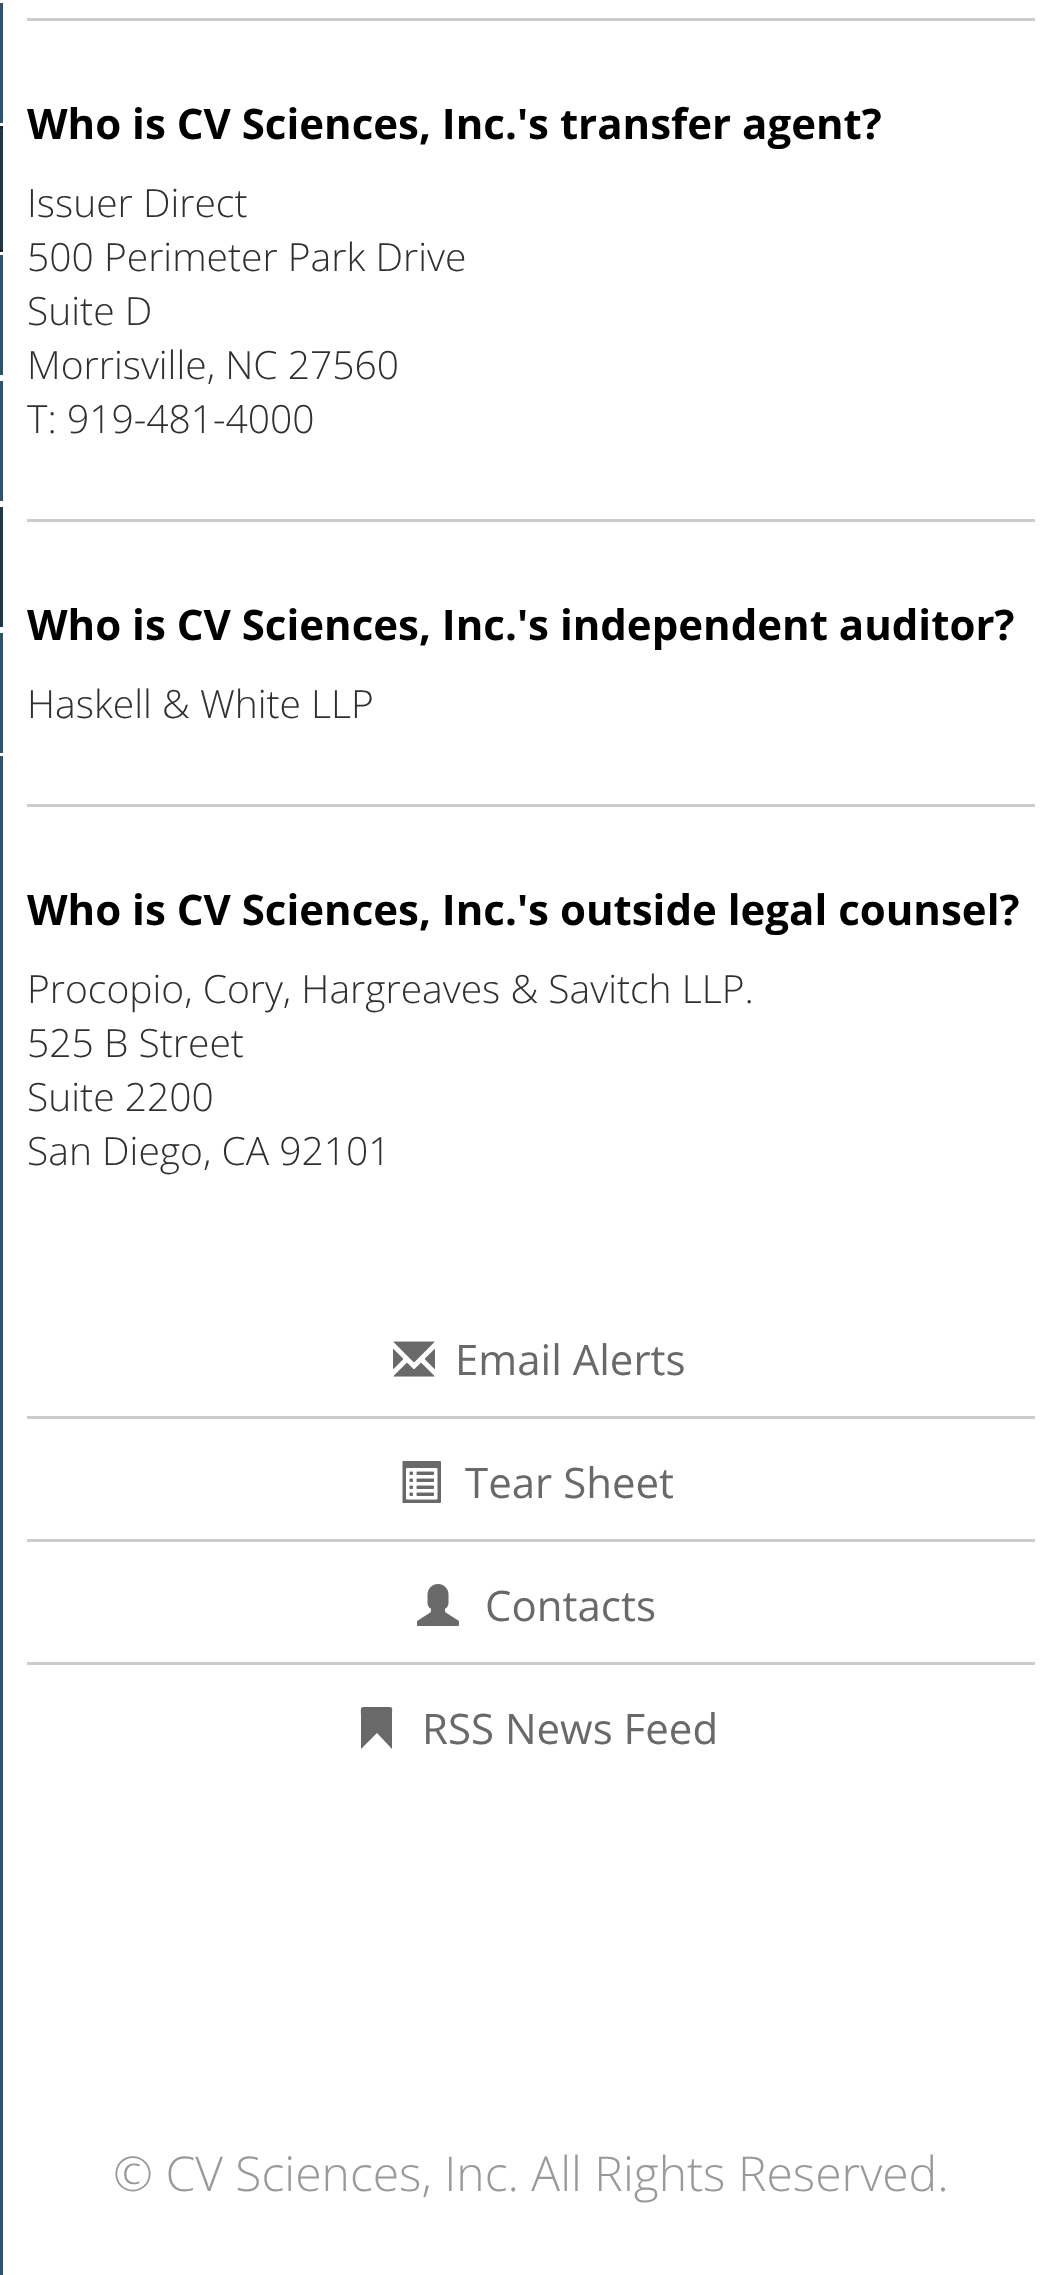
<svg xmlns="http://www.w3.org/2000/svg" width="1060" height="2275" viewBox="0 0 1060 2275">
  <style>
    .t1 { font: bold 42px Open Sans; fill: #000; }
    .t2 { font: 300 39px Open Sans; fill: #303030; }
    .t3 { font: 42px Open Sans; fill: #696969; }
    .t4 { font: 300 48px Open Sans; fill: #999; }
  </style>
  <rect width="100%" height="100%" fill="#fff"/>
  <rect x="0" y="0" width="3" height="2275" fill="#2e546c"/>
  <rect x="0" y="0" width="3" height="3" fill="#fff"/>
  <rect x="0" y="123" width="3" height="3" fill="#fff"/>
  <rect x="0" y="126" width="3" height="126" fill="#1b394c"/>
  <rect x="0" y="126" width="3" height="3" fill="#212121"/>
  <rect x="0" y="249" width="3" height="3" fill="#212121"/>
  <rect x="0" y="252" width="3" height="3" fill="#fff"/>
  <rect x="0" y="375" width="3" height="6" fill="#fff"/>
  <rect x="0" y="501" width="3" height="6" fill="#fff"/>
  <rect x="0" y="627" width="3" height="6" fill="#fff"/>
  <rect x="0" y="507" width="3" height="120" fill="#1b394c"/>
  <rect x="0" y="753" width="3" height="3" fill="#fff"/>
  <rect x="27" y="18" width="1008" height="3" fill="#ccc"/>
  <text x="27" y="139" class="t1">Who is CV Sciences, Inc.'s transfer agent?</text>
  <text x="27" y="217" class="t2">Issuer Direct</text>
  <text x="27" y="271" class="t2">500 Perimeter Park Drive</text>
  <text x="27" y="325" class="t2">Suite D</text>
  <text x="27" y="379" class="t2">Morrisville, NC 27560</text>
  <text x="27" y="433" class="t2">T: 919-481-4000</text>
  <rect x="27" y="519" width="1008" height="3" fill="#ccc"/>
  <text x="27" y="640" class="t1">Who is CV Sciences, Inc.'s independent auditor?</text>
  <text x="27" y="718" class="t2">Haskell &amp; White LLP</text>
  <rect x="27" y="804" width="1008" height="3" fill="#ccc"/>
  <text x="27" y="925" class="t1">Who is CV Sciences, Inc.'s outside legal counsel?</text>
  <text x="27" y="1003" class="t2">Procopio, Cory, Hargreaves &amp; Savitch LLP.</text>
  <text x="27" y="1057" class="t2">525 B Street</text>
  <text x="27" y="1111" class="t2">Suite 2200</text>
  <text x="27" y="1165" class="t2">San Diego, CA 92101</text>
  <image x="393" y="1341" width="42" height="36" href="images/1.png"/>
  <text x="455" y="1375" class="t3">Email Alerts</text>
  <rect x="27" y="1416" width="1008" height="3" fill="#ccc"/>
  <image x="402" y="1461" width="39" height="42" href="images/2.png"/>
  <text x="465" y="1498" class="t3">Tear Sheet</text>
  <rect x="27" y="1539" width="1008" height="3" fill="#ccc"/>
  <image x="417" y="1584" width="42" height="42" href="images/3.png"/>
  <text x="485" y="1621" class="t3">Contacts</text>
  <rect x="27" y="1662" width="1008" height="3" fill="#ccc"/>
  <text x="422" y="1744" class="t3">RSS News Feed</text>
  <path d="M363 1707H386C394 1707 392 1707 392 1715V1749L377 1733L361 1749V1715C361 1712 360 1707 363 1707Z" fill="#696969"/>
  <text x="113" y="2191" class="t4">© CV Sciences, Inc. All Rights Reserved.</text>
</svg>
